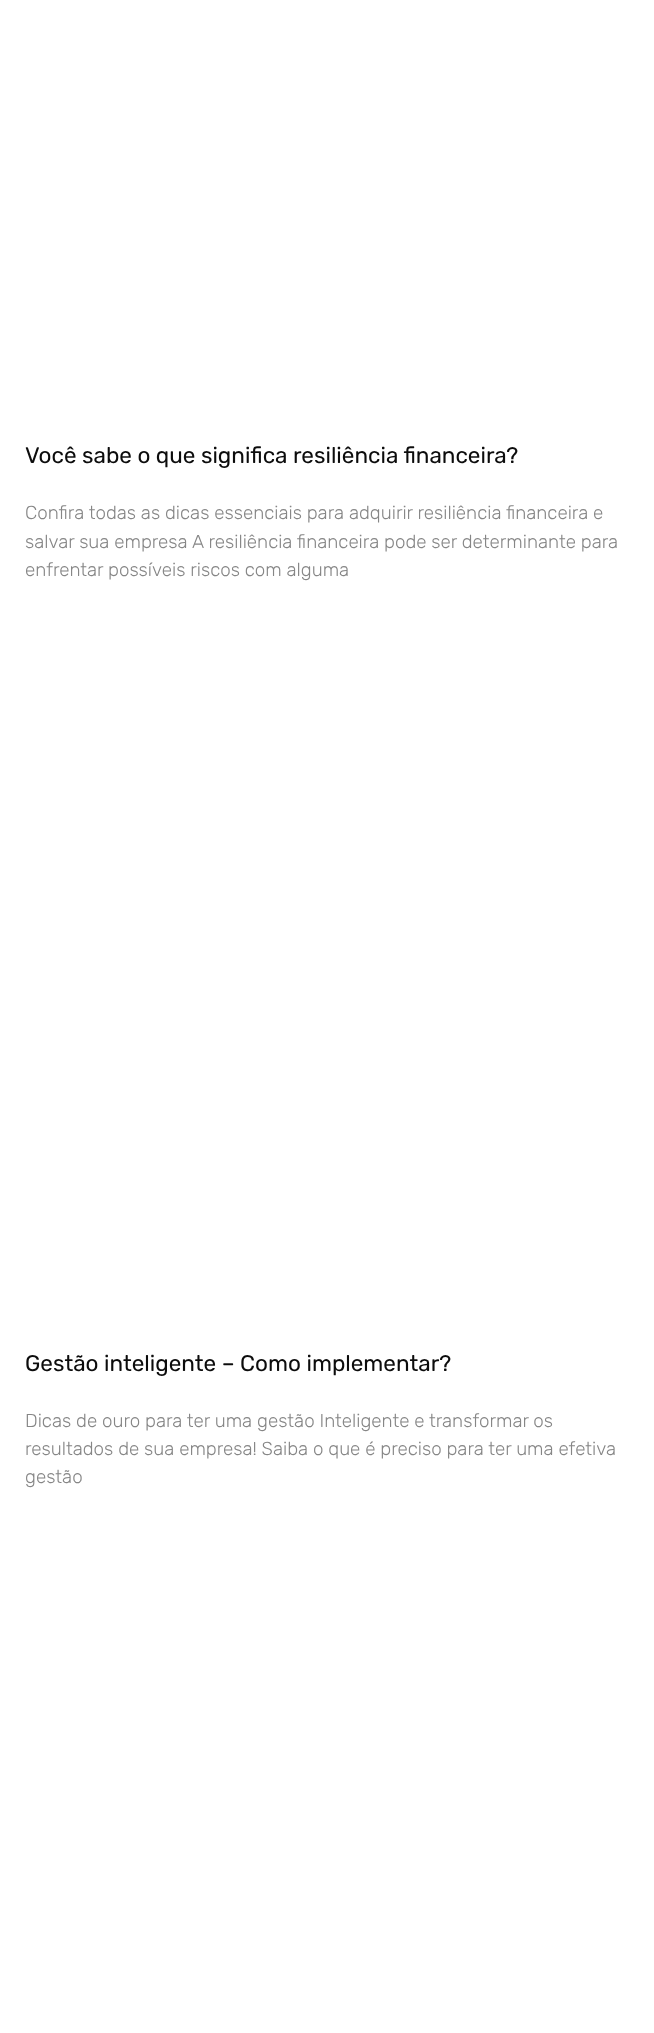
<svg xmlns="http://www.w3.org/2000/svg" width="654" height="2033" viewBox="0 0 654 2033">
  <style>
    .t1 { font: 22.5px Rubik; fill: #0c0c0c; }
    .t2 { font: 300 18.75px Rubik; fill: #868686; }
  </style>
  <rect width="100%" height="100%" fill="#fff"/>
  <text x="25" y="463" class="t1">Você sabe o que significa resiliência financeira?</text>
  <text x="25" y="519" class="t2">Confira todas as dicas essenciais para adquirir resiliência financeira e</text>
  <text x="25" y="548" class="t2">salvar sua empresa A resiliência financeira pode ser determinante para</text>
  <text x="25" y="576" class="t2">enfrentar possíveis riscos com alguma</text>
  <text x="25" y="1371" class="t1">Gestão inteligente – Como implementar?</text>
  <text x="25" y="1427" class="t2">Dicas de ouro para ter uma gestão Inteligente e transformar os</text>
  <text x="25" y="1455" class="t2">resultados de sua empresa! Saiba o que é preciso para ter uma efetiva</text>
  <text x="25" y="1483" class="t2">gestão</text>
</svg>
